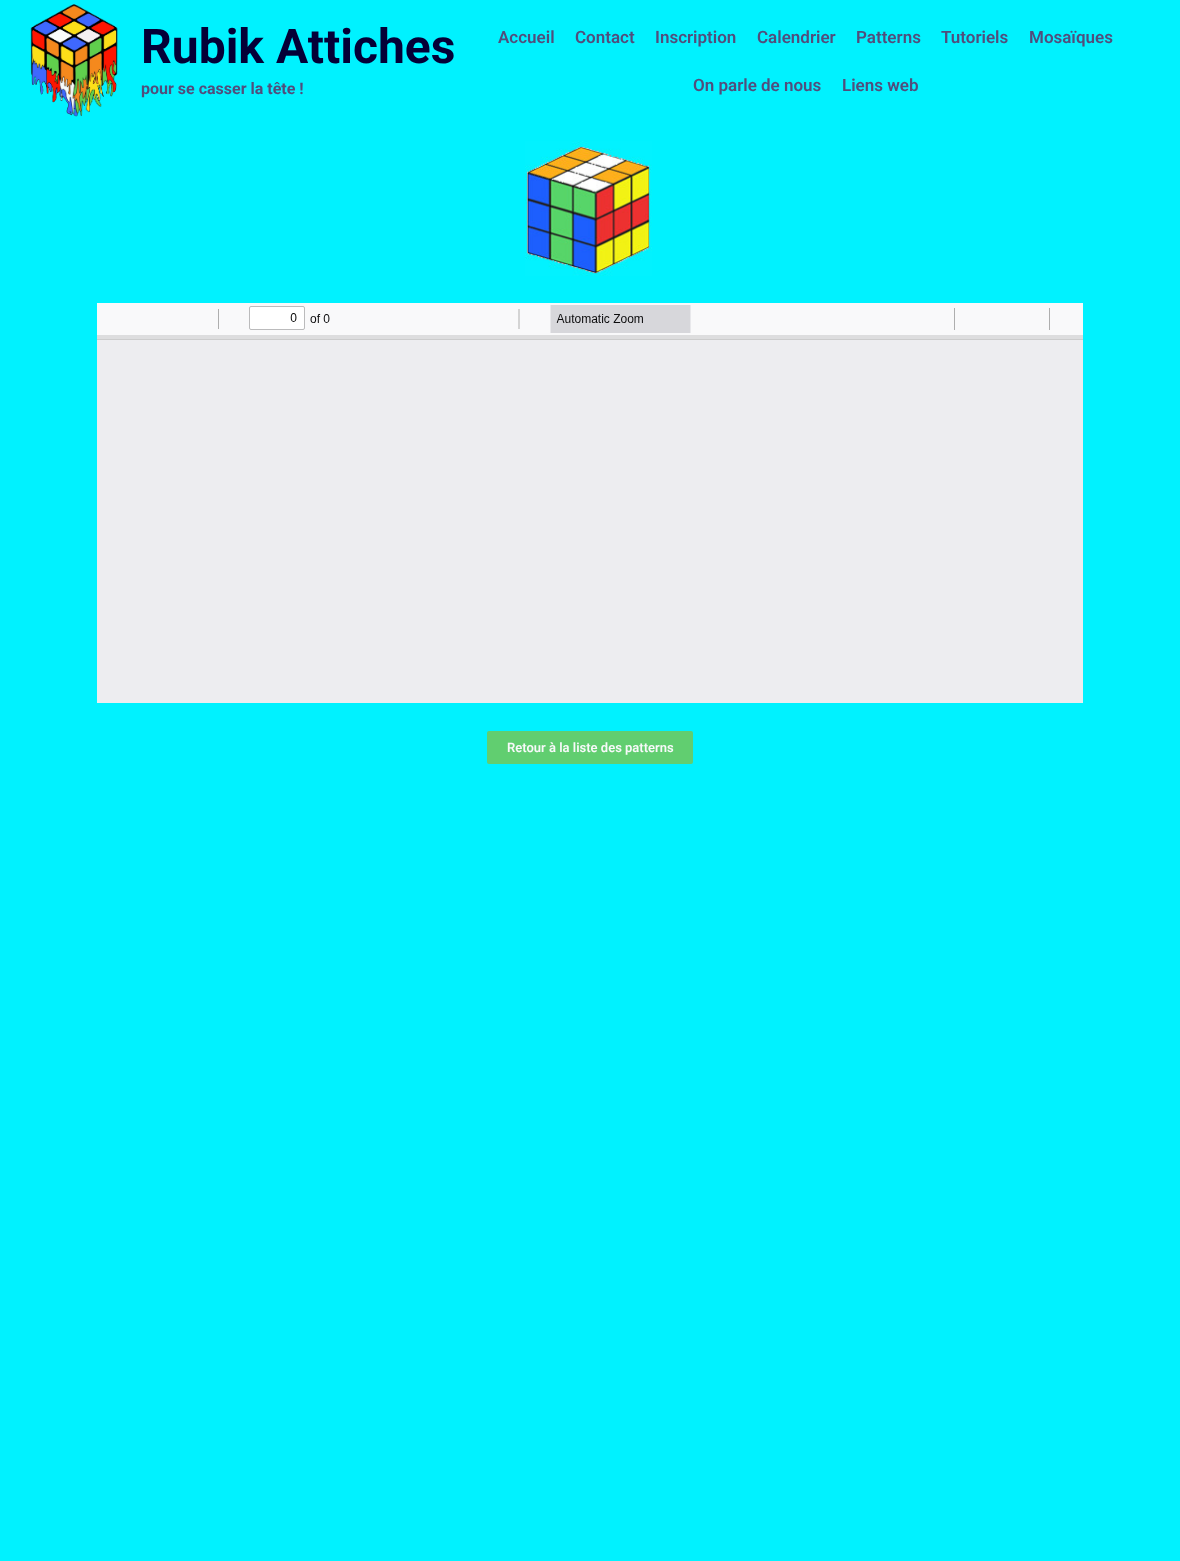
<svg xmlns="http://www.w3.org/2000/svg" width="1180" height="1561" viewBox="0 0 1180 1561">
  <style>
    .t1 { font: bold 48px Roboto; fill: #040037; }
    .t2 { font: bold 16px Roboto; fill: #514d7c; }
    .t3 { font: 600 17px Roboto; fill: #514d7c; }
    .t4 { font: 600 13px Roboto; fill: #f8f9fa; }
  </style>
  <rect width="100%" height="100%" fill="#00f2ff"/>
  <image x="30" y="4" width="88" height="113" href="images/1.png"/>
  <text x="141" y="63" class="t1">Rubik Attiches</text>
  <text x="141" y="94" class="t2">pour se casser la tête !</text>
  <text x="498" y="43" class="t3">Accueil</text>
  <text x="575" y="43" class="t3">Contact</text>
  <text x="655" y="43" class="t3">Inscription</text>
  <text x="757" y="43" class="t3">Calendrier</text>
  <text x="856" y="43" class="t3">Patterns</text>
  <text x="941" y="43" class="t3">Tutoriels</text>
  <text x="1029" y="43" class="t3">Mosaïques</text>
  <text x="693" y="91" class="t3">On parle de nous</text>
  <text x="842" y="91" class="t3">Liens web</text>
  <image x="525" y="141" width="127" height="135" href="images/2.png"/>
  <image x="97" y="303" width="986" height="400" href="images/3.png"/>
  <rect x="487" y="731" width="206" height="33" rx="2" fill="#61ce70"/>
  <text x="507" y="752" class="t4">Retour à la liste des patterns</text>
</svg>
